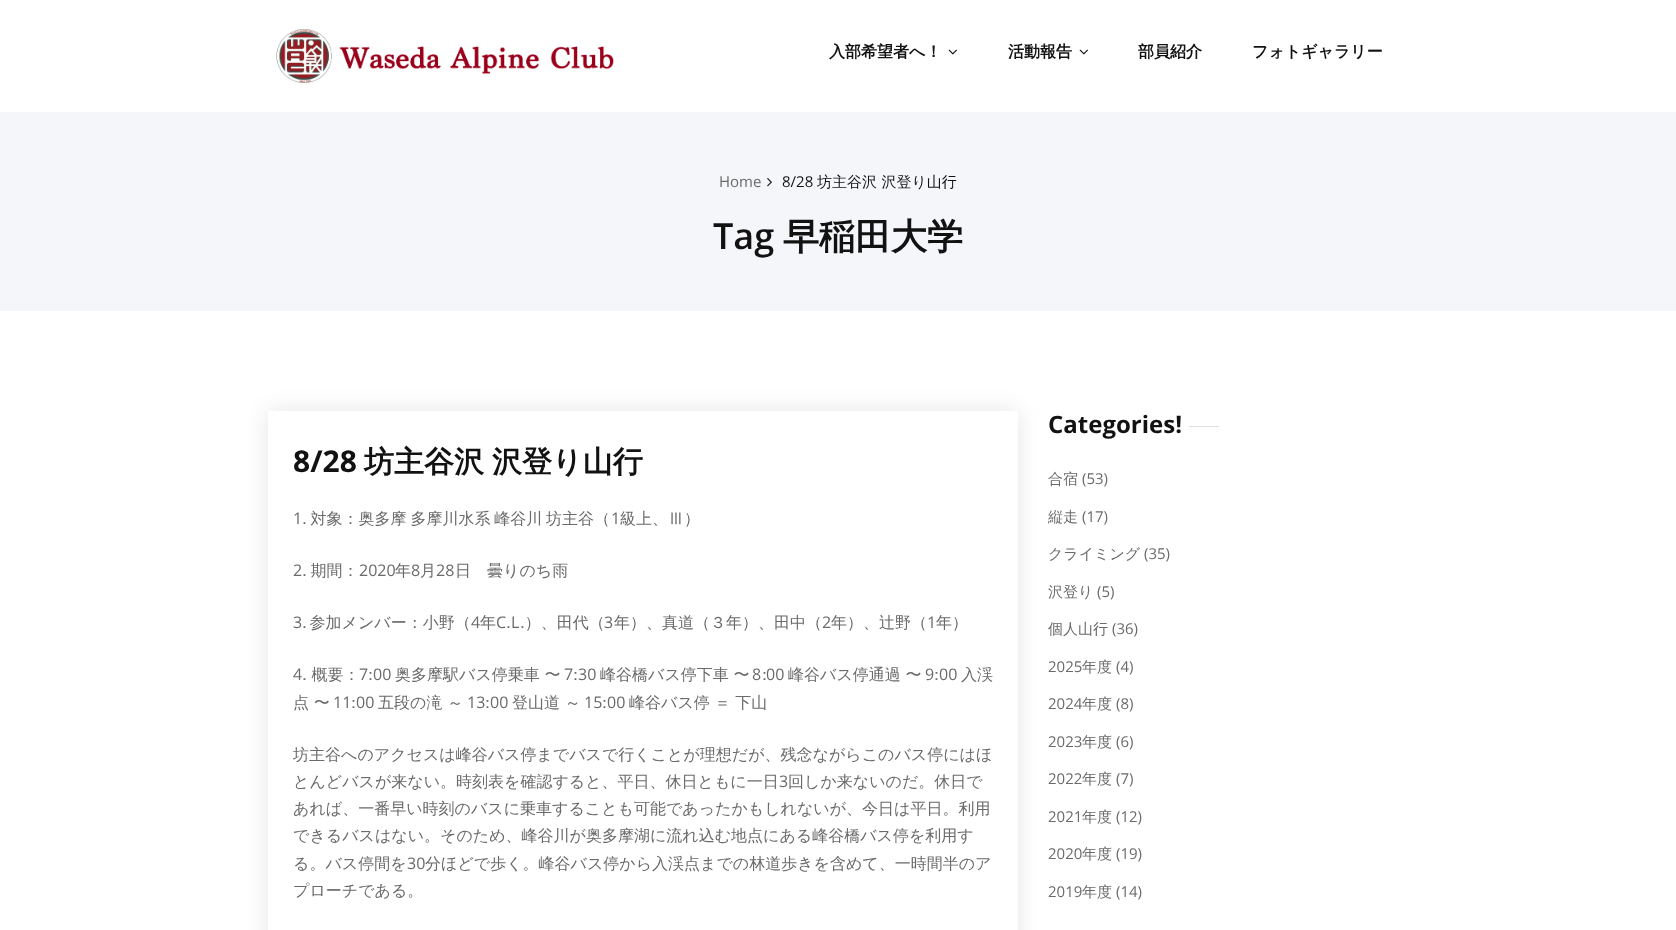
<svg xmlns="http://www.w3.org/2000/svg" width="1676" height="930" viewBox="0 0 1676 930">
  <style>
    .t1 { font: bold 16px WenQuanYi Zen Hei; fill: #121212; }
    .t2 { font: 15px Open Sans; fill: #6a6a6a; }
    .t3 { font: 15px Open Sans; fill: #121212; }
    .t4 { font: 500 15px WenQuanYi Zen Hei; fill: #121212; }
    .t5 { font: 600 36px Open Sans; fill: #121212; }
    .t6 { font: bold 36px WenQuanYi Zen Hei; fill: #121212; }
    .t7 { font: bold 30px Open Sans; fill: #121212; }
    .t8 { font: bold 30px WenQuanYi Zen Hei; fill: #121212; }
    .t9 { font: 16px Open Sans; fill: #6a6a6a; }
    .t10 { font: 500 16px WenQuanYi Zen Hei; fill: #6a6a6a; }
    .t11 { font: bold 24px Open Sans; fill: #121212; }
    .t12 { font: 500 15px WenQuanYi Zen Hei; fill: #6a6a6a; }
  </style>
  <defs>
    <clipPath id="clip1"><path d="M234 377H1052V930H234ZM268 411H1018V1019H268Z" clip-rule="evenodd"/></clipPath>
  </defs>
  <rect width="100%" height="100%" fill="#fff"/>
  <image x="276" y="29" width="338" height="54" href="images/1.png"/>
  <text x="829" y="57" class="t1">入部希望者へ！</text>
  <image x="948" y="49" width="9" height="6" href="images/2.png"/>
  <text x="1008" y="57" class="t1">活動報告</text>
  <image x="1079" y="49" width="9" height="6" href="images/2.png"/>
  <text x="1138" y="57" class="t1">部員紹介</text>
  <text x="1252" y="57" class="t1">フォトギャラリー</text>
  <rect x="0" y="112" width="1676" height="199" fill="#f5f6f9"/>
  <text x="719" y="187" class="t2">Home</text>
  <image x="767" y="178" width="5" height="9" href="images/3.png"/>
  <text x="782" y="187" class="t3">8/28</text>
  <text x="817" y="187" class="t4">坊主谷沢 沢登り山行</text>
  <text x="713" y="249" class="t5">Tag</text>
  <text x="783" y="249" class="t6">早稲田大学</text>
  <g clip-path="url(#clip1)">
    <rect x="268" y="411" width="750" height="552" fill="#0000001a" filter="blur(11px)"/>
  </g>
  <text x="293" y="472" class="t7">8/28</text>
  <text x="364" y="472" word-spacing="-1" class="t8">坊主谷沢 沢登り山行</text>
  <text x="293" y="524" class="t9">1</text>
  <text x="302" y="524" word-spacing="-1" class="t10">. 対象：奥多摩 多摩川水系 峰谷川 坊主谷（</text>
  <text x="611" y="524" class="t9">1</text>
  <text x="620" y="524" class="t10">級上、Ⅲ）</text>
  <text x="293" y="576" class="t9">2</text>
  <text x="302" y="576" word-spacing="-1" class="t10">. 期間：</text>
  <text x="359" y="576" class="t9">2020</text>
  <text x="395" y="576" class="t10">年</text>
  <text x="411" y="576" class="t9">8</text>
  <text x="420" y="576" class="t10">月</text>
  <text x="436" y="576" class="t9">28</text>
  <text x="455" y="576" class="t10">日　曇りのち雨</text>
  <text x="293" y="628" class="t9">3</text>
  <text x="302" y="628" word-spacing="-2" class="t10">. 参加メンバー：小野（</text>
  <text x="471" y="628" class="t9">4</text>
  <text x="480" y="628" class="t10">年</text>
  <text x="496" y="628" class="t9">C</text>
  <text x="506" y="628" class="t10">.</text>
  <text x="511" y="628" class="t9">L</text>
  <text x="520" y="628" class="t10">.）、田代（</text>
  <text x="604" y="628" class="t9">3</text>
  <text x="614" y="628" class="t10">年）、真道（３年）、田中（</text>
  <text x="822" y="628" class="t9">2</text>
  <text x="831" y="628" class="t10">年）、辻野（</text>
  <text x="927" y="628" class="t9">1</text>
  <text x="936" y="628" class="t10">年）</text>
  <text x="293" y="680" class="t9">4</text>
  <text x="302" y="680" class="t10">. 概要：</text>
  <text x="359" y="680" class="t9">7</text>
  <text x="368" y="680" class="t10">:</text>
  <text x="373" y="680" class="t9">00</text>
  <text x="395" y="680" class="t10">奥多摩駅バス停乗車 〜</text>
  <text x="564" y="680" class="t9">7</text>
  <text x="573" y="680" class="t10">:</text>
  <text x="578" y="680" class="t9">30</text>
  <text x="600" y="680" class="t10">峰谷橋バス停下車 〜</text>
  <text x="752" y="680" class="t9">8</text>
  <text x="762" y="680" class="t10">:</text>
  <text x="766" y="680" class="t9">00</text>
  <text x="788" y="680" class="t10">峰谷バス停通過 〜</text>
  <text x="925" y="680" class="t9">9</text>
  <text x="934" y="680" class="t10">:</text>
  <text x="939" y="680" class="t9">00</text>
  <text x="961" y="680" class="t10">入渓</text>
  <text x="293" y="708" class="t10">点 〜</text>
  <text x="333" y="708" class="t9">11</text>
  <text x="351" y="708" class="t10">:</text>
  <text x="356" y="708" class="t9">00</text>
  <text x="378" y="708" class="t10">五段の滝 ～</text>
  <text x="467" y="708" class="t9">13</text>
  <text x="485" y="708" class="t10">:</text>
  <text x="490" y="708" class="t9">00</text>
  <text x="512" y="708" class="t10">登山道 ～</text>
  <text x="584" y="708" class="t9">15</text>
  <text x="602" y="708" class="t10">:</text>
  <text x="607" y="708" class="t9">00</text>
  <text x="629" y="708" class="t10">峰谷バス停 ＝ 下山</text>
  <text x="293" y="760" class="t10">坊主谷へのアクセスは峰谷バス停までバスで行くことが理想だが、残念ながらこのバス停にはほ</text>
  <text x="293" y="787" class="t10">とんどバスが来ない。時刻表を確認すると、平日、休日ともに一日</text>
  <text x="779" y="787" class="t9">3</text>
  <text x="788" y="787" class="t10">回しか来ないのだ。休日で</text>
  <text x="293" y="814" class="t10">あれば、一番早い時刻のバスに乗車することも可能であったかもしれないが、今日は平日。利用</text>
  <text x="293" y="841" class="t10">できるバスはない。そのため、峰谷川が奥多摩湖に流れ込む地点にある峰谷橋バス停を利用す</text>
  <text x="293" y="869" class="t10">る。バス停間を</text>
  <text x="407" y="869" class="t9">30</text>
  <text x="425" y="869" class="t10">分ほどで歩く。峰谷バス停から入渓点までの林道歩きを含めて、一時間半のア</text>
  <text x="293" y="896" class="t10">プローチである。</text>
  <text x="1048" y="433" class="t11">Categories!</text>
  <rect x="1189" y="426" width="30" height="1" fill="#dfdfdf"/>
  <text x="1048" y="484" class="t12">合宿</text>
  <text x="1082" y="484" class="t2">(53)</text>
  <text x="1048" y="522" class="t12">縦走</text>
  <text x="1082" y="522" class="t2">(17)</text>
  <text x="1048" y="559" class="t12">クライミング</text>
  <text x="1144" y="559" class="t2">(35)</text>
  <text x="1048" y="597" class="t12">沢登り</text>
  <text x="1097" y="597" class="t2">(5)</text>
  <text x="1048" y="634" class="t12">個人山行</text>
  <text x="1112" y="634" class="t2">(36)</text>
  <text x="1048" y="672" class="t2">2025</text>
  <text x="1082" y="672" class="t12">年度</text>
  <text x="1116" y="672" class="t2">(4)</text>
  <text x="1048" y="709" class="t2">2024</text>
  <text x="1082" y="709" class="t12">年度</text>
  <text x="1116" y="709" class="t2">(8)</text>
  <text x="1048" y="747" class="t2">2023</text>
  <text x="1082" y="747" class="t12">年度</text>
  <text x="1116" y="747" class="t2">(6)</text>
  <text x="1048" y="784" class="t2">2022</text>
  <text x="1082" y="784" class="t12">年度</text>
  <text x="1116" y="784" class="t2">(7)</text>
  <text x="1048" y="822" class="t2">2021</text>
  <text x="1082" y="822" class="t12">年度</text>
  <text x="1116" y="822" class="t2">(12)</text>
  <text x="1048" y="859" class="t2">2020</text>
  <text x="1082" y="859" class="t12">年度</text>
  <text x="1116" y="859" class="t2">(19)</text>
  <text x="1048" y="897" class="t2">2019</text>
  <text x="1082" y="897" class="t12">年度</text>
  <text x="1116" y="897" class="t2">(14)</text>
</svg>
